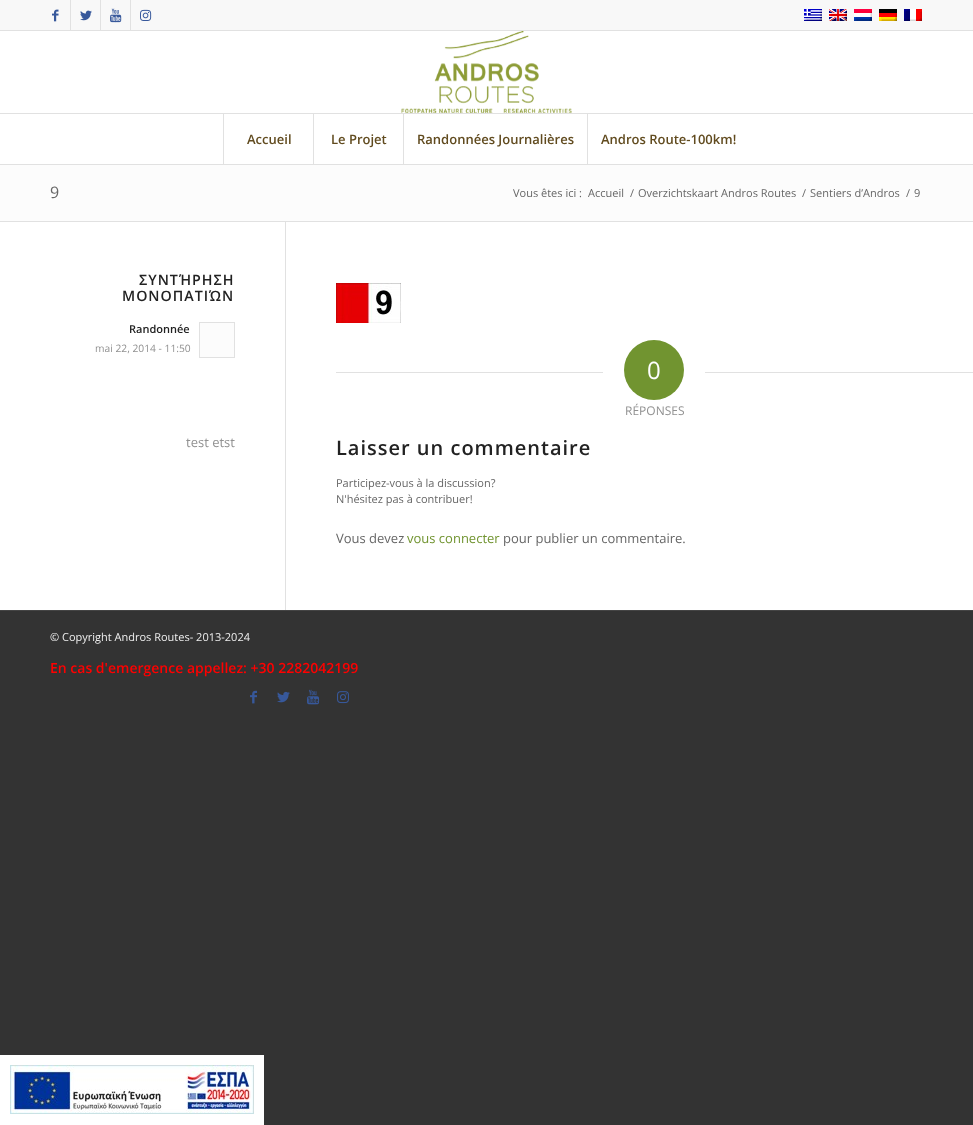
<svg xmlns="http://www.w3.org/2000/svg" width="973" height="1125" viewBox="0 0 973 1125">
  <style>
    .t1 { font: 600 13px Open Sans; fill: #614b1f; }
    .t2 { font: 16px Open Sans; fill: #666; }
    .t3 { font: 11px Open Sans; fill: #666; }
    .t4 { font: 600 14.25px Open Sans; letter-spacing: 1px; fill: #222; }
    .t5 { font: 600 11px Open Sans; fill: #222; }
    .t6 { font: 10.25px Open Sans; fill: #919191; }
    .t7 { font: 13px Open Sans; fill: #919191; }
    .t8 { font: 24px Open Sans; fill: #fff; }
    .t9 { font: 12px Open Sans; fill: #919191; }
    .t10 { font: 600 20px Open Sans; letter-spacing: 1px; fill: #222; }
    .t11 { font: 13px Open Sans; fill: #666; }
    .t12 { font: 13px Open Sans; fill: #719430; }
    .t13 { font: 11px Open Sans; fill: #eee; }
    .t14 { font: 600 14px Open Sans; fill: #f00; }
  </style>
  <rect width="100%" height="100%" fill="#333"/>
  <rect x="0" y="0" width="973" height="30" fill="#f8f8f8"/>
  <rect x="0" y="30" width="973" height="1" fill="#e1e1e1"/>
  <rect x="70" y="0" width="1" height="30" fill="#e1e1e1"/>
  <image x="52" y="9" width="7" height="13" href="images/1.png"/>
  <rect x="100" y="0" width="1" height="30" fill="#e1e1e1"/>
  <image x="80" y="10" width="12" height="11" href="images/2.png"/>
  <rect x="130" y="0" width="1" height="30" fill="#e1e1e1"/>
  <image x="110" y="8" width="12" height="15" href="images/3.png"/>
  <image x="140" y="9" width="12" height="12" href="images/4.png"/>
  <image x="804" y="9" width="18" height="12" href="images/5.png"/>
  <image x="829" y="9" width="18" height="12" href="images/6.png"/>
  <image x="854" y="9" width="18" height="12" href="images/7.png"/>
  <image x="879" y="9" width="18" height="12" href="images/8.png"/>
  <image x="904" y="9" width="18" height="12" href="images/9.png"/>
  <rect x="0" y="1055" width="264" height="70" fill="#fff"/>
  <image x="10" y="1065" width="244" height="49" href="images/10.png"/>
  <rect x="0" y="31" width="973" height="133" fill="#fff"/>
  <rect x="0" y="164" width="973" height="1" fill="#e1e1e1"/>
  <image x="401" y="31" width="171" height="82" href="images/11.png"/>
  <rect x="0" y="113" width="973" height="1" fill="#e1e1e1"/>
  <rect x="223" y="114" width="1" height="50" fill="#e1e1e1"/>
  <text x="247" y="144" class="t1">Accueil</text>
  <rect x="313" y="114" width="1" height="50" fill="#e1e1e1"/>
  <text x="331" y="144" class="t1">Le Projet</text>
  <rect x="403" y="114" width="1" height="50" fill="#e1e1e1"/>
  <text x="417" y="144" class="t1">Randonnées Journalières</text>
  <rect x="587" y="114" width="1" height="50" fill="#e1e1e1"/>
  <text x="601" y="144" class="t1">Andros Route-100km!</text>
  <rect x="0" y="222" width="973" height="388" fill="#fff"/>
  <rect x="0" y="165" width="973" height="56" fill="#fcfcfc"/>
  <text x="50" y="198" class="t2">9</text>
  <text x="513" y="197" class="t3">Vous êtes ici :</text>
  <text x="588" y="197" class="t3">Accueil</text>
  <text x="630" y="197" class="t3">/</text>
  <text x="638" y="197" class="t3">Overzichtskaart Andros Routes</text>
  <text x="802" y="197" class="t3">/</text>
  <text x="810" y="197" class="t3">Sentiers d’Andros</text>
  <text x="906" y="197" class="t3">/</text>
  <text x="914" y="197" class="t3">9</text>
  <rect x="0" y="221" width="973" height="1" fill="#e1e1e1"/>
  <text x="139" y="285" class="t4">ΣΥΝΤΉΡΗΣΗ</text>
  <text x="122" y="301" class="t4">ΜΟΝΟΠΑΤΙΏΝ</text>
  <text x="129" y="333" class="t5">Randonnée</text>
  <text x="95" y="352" class="t6">mai 22, 2014 - 11:50</text>
  <rect x="199.5" y="322.5" width="35" height="35" fill="#fcfcfc" stroke="#e1e1e1"/>
  <text x="186" y="447" class="t7">test etst</text>
  <rect x="285" y="222" width="1" height="388" fill="#e1e1e1"/>
  <image x="336" y="283" width="65" height="40" href="images/12.png"/>
  <rect x="336" y="372" width="267" height="1" fill="#e1e1e1"/>
  <circle cx="654" cy="370" r="30" fill="#719430"/>
  <text x="647" y="379" class="t8">0</text>
  <rect x="705" y="372" width="268" height="1" fill="#e1e1e1"/>
  <text x="625" y="415" class="t9">RÉPONSES</text>
  <text x="336" y="455" class="t10">Laisser un commentaire</text>
  <text x="336" y="487" class="t3">Participez-vous à la discussion?</text>
  <text x="336" y="503" class="t3">N'hésitez pas à contribuer!</text>
  <text x="336" y="543" class="t11">Vous devez</text>
  <text x="407" y="543" class="t12">vous connecter</text>
  <text x="503" y="543" class="t11">pour publier un commentaire.</text>
  <rect x="0" y="610" width="973" height="1" fill="#444"/>
  <text x="50" y="641" class="t13">© Copyright Andros Routes- 2013-2024</text>
  <text x="50" y="673" class="t14">En cas d'emergence appellez: +30 2282042199</text>
  <image x="250" y="690" width="7" height="14" href="images/13.png"/>
  <image x="277" y="691" width="13" height="12" href="images/14.png"/>
  <image x="307" y="689" width="13" height="16" href="images/15.png"/>
  <image x="337" y="691" width="12" height="13" href="images/16.png"/>
</svg>
